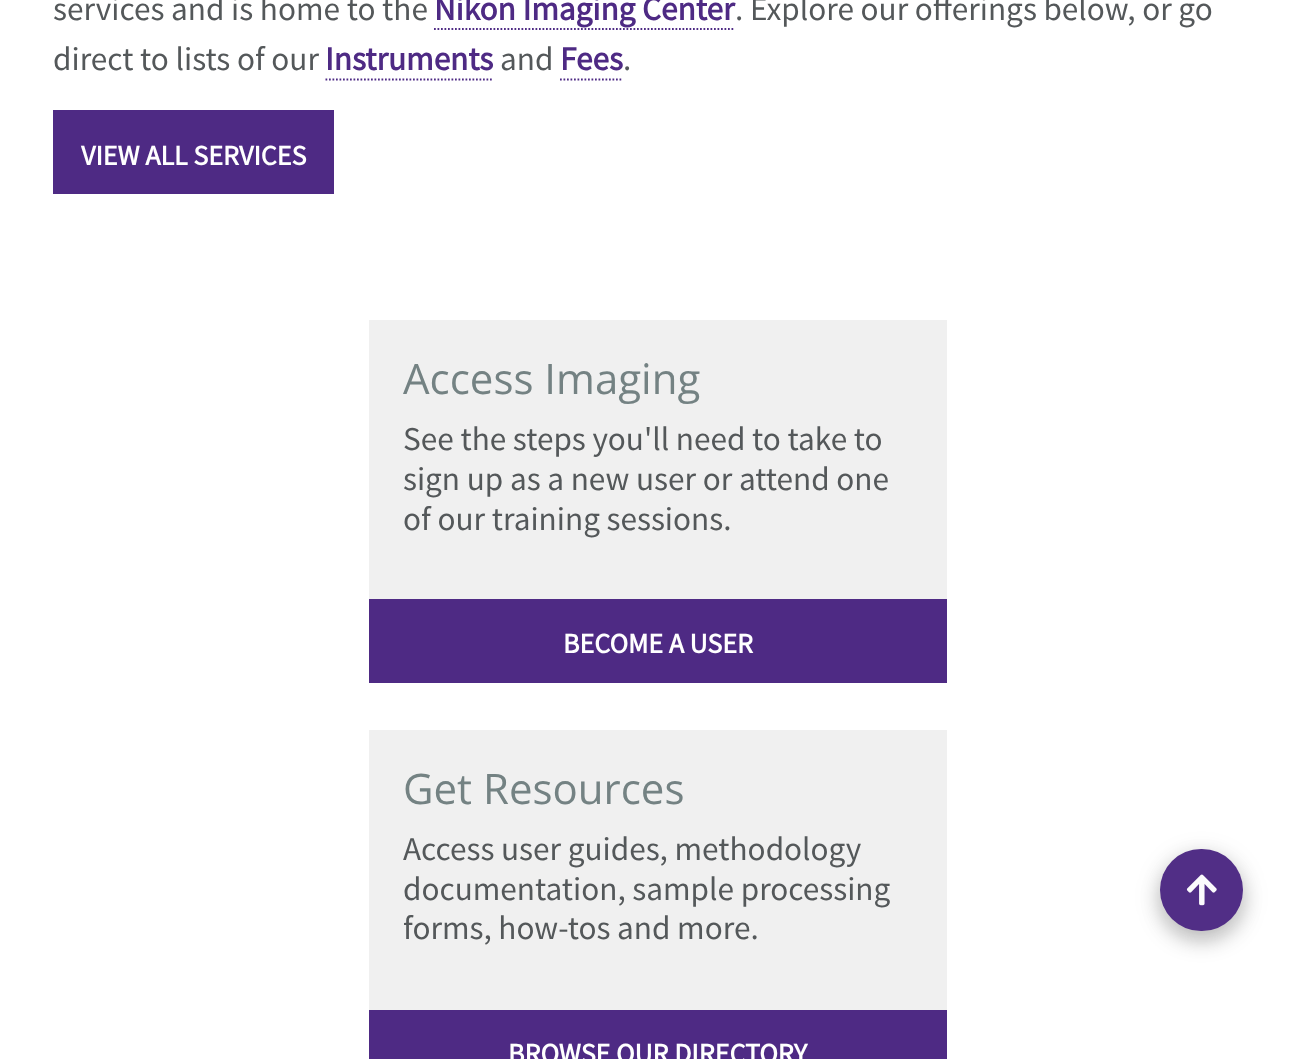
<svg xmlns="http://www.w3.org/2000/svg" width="1315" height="1059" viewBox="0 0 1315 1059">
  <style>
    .t1 { font: 33.25px Source Sans Pro; fill: #54585a; }
    .t2 { font: bold 33.25px Source Sans Pro; fill: #4e2a84; }
    .t3 { font: bold 28px Source Sans Pro; fill: #fff; }
    .t4 { font: 42px Open Sans; fill: #748283; }
  </style>
  <rect width="100%" height="100%" fill="#fff"/>
  <text x="53" y="20" class="t1">services and is home to the</text>
  <text x="434" y="20" class="t2">Nikon Imaging Center</text>
  <path d="M434 29H735" fill="none" stroke="#4e2a84" stroke-width="1.8" stroke-dasharray="1.75 1.75"/>
  <text x="735" y="20" class="t1">. Explore our offerings below, or go</text>
  <text x="53" y="70" class="t1">direct to lists of our</text>
  <text x="325" y="70" class="t2">Instruments</text>
  <path d="M325.5 79.5H493.5" fill="none" stroke="#4e2a84" stroke-width="1.8" stroke-dasharray="1.75 1.75"/>
  <text x="500" y="70" class="t1">and</text>
  <text x="560" y="70" class="t2">Fees</text>
  <path d="M560 79.5H623" fill="none" stroke="#4e2a84" stroke-width="1.8" stroke-dasharray="1.75 1.75"/>
  <text x="623" y="70" class="t1">.</text>
  <rect x="53" y="110" width="281" height="84" fill="#4e2a84"/>
  <text x="81" y="165" class="t3">VIEW ALL SERVICES</text>
  <rect x="369" y="320" width="578" height="279" fill="#f0f0f0"/>
  <text x="403" y="394" class="t4">Access Imaging</text>
  <text x="403" y="450" class="t1">See the steps you'll need to take to</text>
  <text x="403" y="490" class="t1">sign up as a new user or attend one</text>
  <text x="403" y="530" class="t1">of our training sessions.</text>
  <rect x="369" y="599" width="578" height="84" fill="#4e2a84"/>
  <text x="563" y="653" class="t3">BECOME A USER</text>
  <rect x="369" y="730" width="578" height="280" fill="#f0f0f0"/>
  <text x="403" y="804" class="t4">Get Resources</text>
  <text x="403" y="860" class="t1">Access user guides, methodology</text>
  <text x="403" y="900" class="t1">documentation, sample processing</text>
  <text x="403" y="939" class="t1">forms, how-tos and more.</text>
  <rect x="369" y="1010" width="578" height="49" fill="#4e2a84"/>
  <text x="508" y="1063" class="t3">BROWSE OUR DIRECTORY</text>
  <rect x="1160" y="856" width="83" height="82" rx="41" fill="#05050526" filter="blur(13px)"/>
  <rect x="1160" y="858" width="83" height="82" rx="41" fill="#0505052e" filter="blur(9.5px)"/>
  <rect x="1160" y="849" width="83" height="82" rx="41" fill="#512e86"/>
  <image x="1186" y="874" width="31" height="32" href="images/1.png"/>
</svg>
